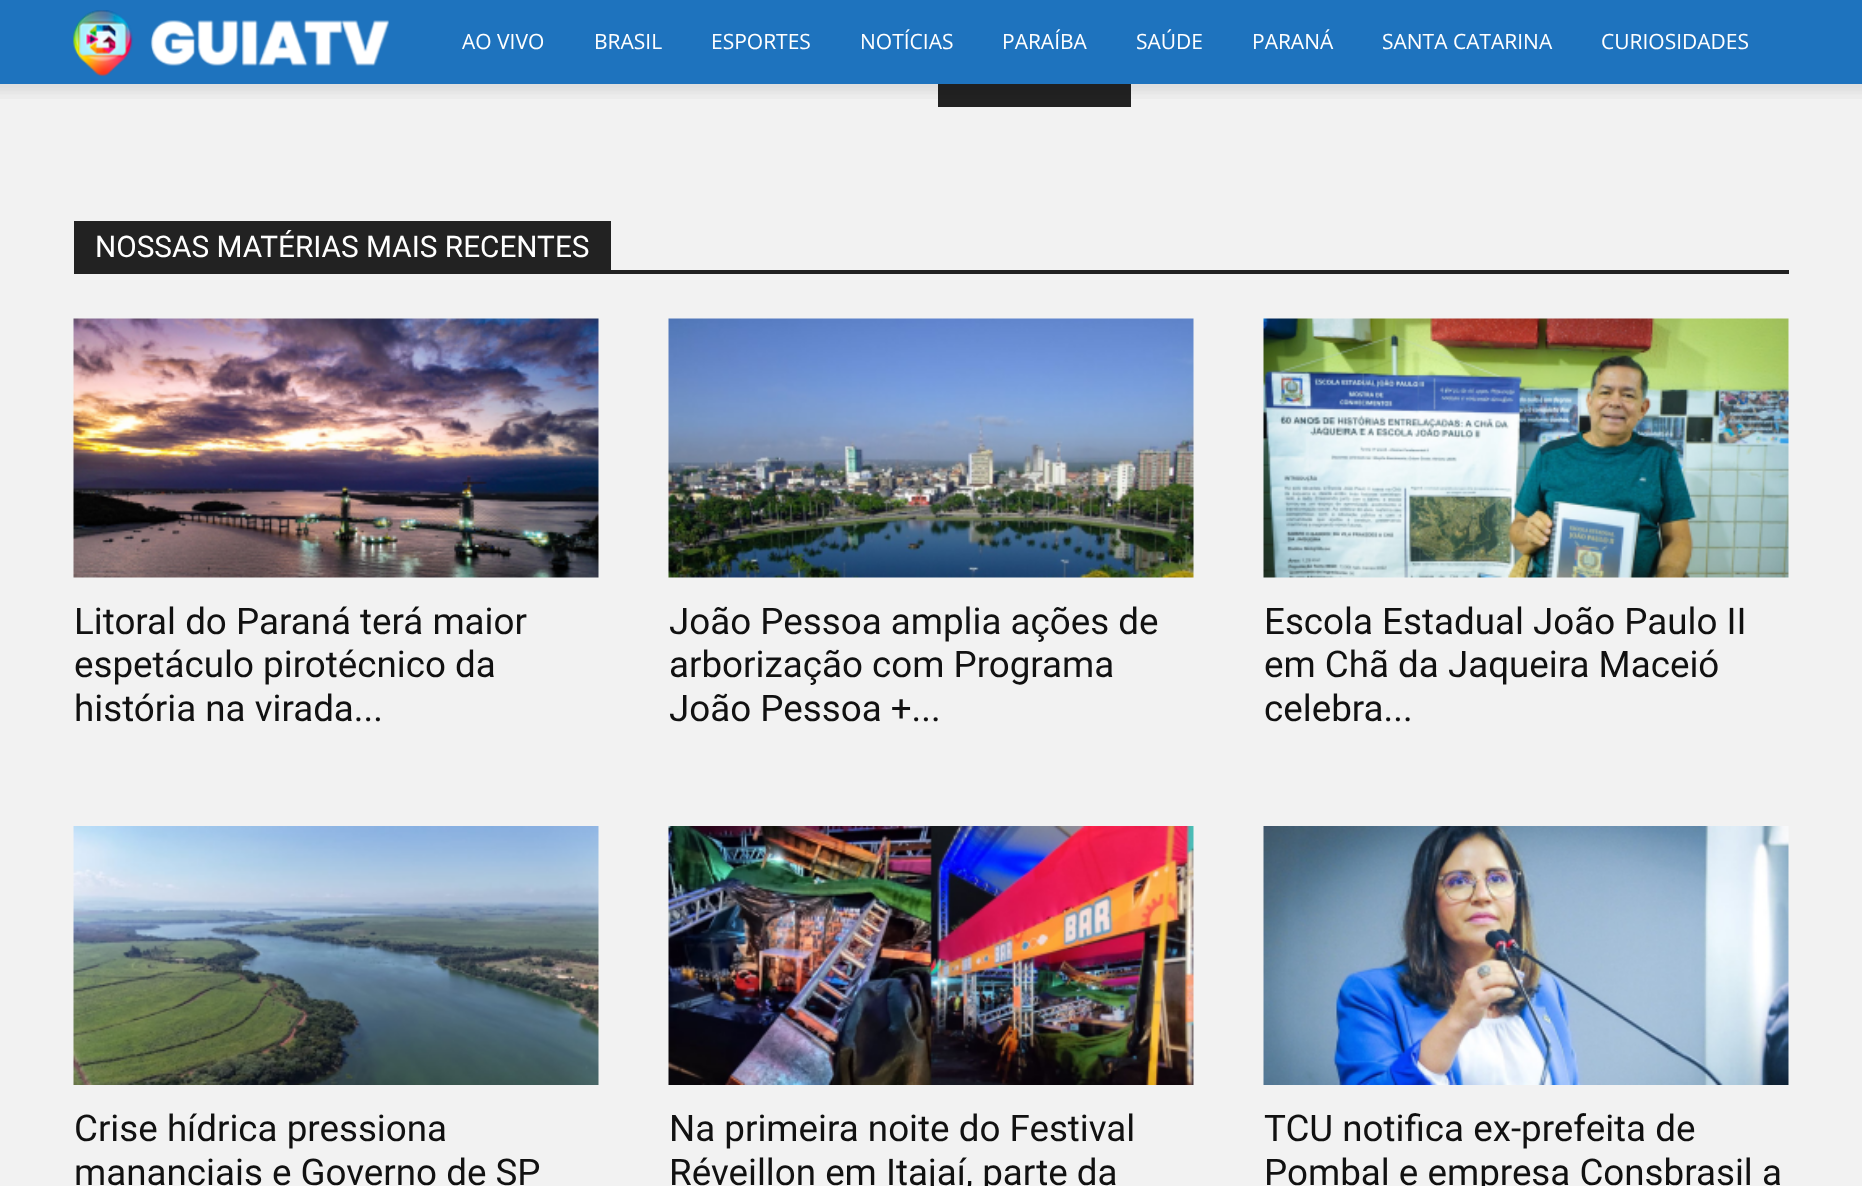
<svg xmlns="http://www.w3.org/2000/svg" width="1862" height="1186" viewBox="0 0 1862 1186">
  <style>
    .t1 { font: 21px Open Sans; fill: #fff; }
    .t2 { font: 29.75px Roboto; fill: #fff; }
    .t3 { font: 36.75px Roboto; fill: #111; }
  </style>
  <rect width="100%" height="100%" fill="#f2f2f2"/>
  <rect x="0" y="0" width="1862" height="84" fill="#1e73be"/>
  <image x="73" y="10" width="316" height="66" href="images/1.png"/>
  <text x="462" y="49" class="t1">AO VIVO</text>
  <text x="594" y="49" class="t1">BRASIL</text>
  <text x="711" y="49" class="t1">ESPORTES</text>
  <text x="860" y="49" class="t1">NOTÍCIAS</text>
  <text x="1002" y="49" class="t1">PARAÍBA</text>
  <text x="1136" y="49" class="t1">SAÚDE</text>
  <text x="1252" y="49" class="t1">PARANÁ</text>
  <text x="1382" y="49" class="t1">SANTA CATARINA</text>
  <text x="1601" y="49" class="t1">CURIOSIDADES</text>
  <rect x="938" y="84" width="193" height="23" fill="#222"/>
  <image x="0" y="84" width="1862" height="15" href="images/2.png"/>
  <rect x="74" y="270" width="1715" height="4" fill="#222"/>
  <rect x="74" y="221" width="537" height="49" fill="#222"/>
  <text x="95" y="257" class="t2">NOSSAS MATÉRIAS MAIS RECENTES</text>
  <image x="73" y="318" width="526" height="260" href="images/3.png"/>
  <text x="74" y="634" class="t3">Litoral do Paraná terá maior</text>
  <text x="74" y="677" class="t3">espetáculo pirotécnico da</text>
  <text x="74" y="721" class="t3">história na virada...</text>
  <image x="668" y="318" width="526" height="260" href="images/4.png"/>
  <text x="669" y="634" class="t3">João Pessoa amplia ações de</text>
  <text x="669" y="677" class="t3">arborização com Programa</text>
  <text x="669" y="721" class="t3">João Pessoa +...</text>
  <image x="1263" y="318" width="526" height="260" href="images/5.png"/>
  <text x="1264" y="634" class="t3">Escola Estadual João Paulo II</text>
  <text x="1264" y="677" class="t3">em Chã da Jaqueira Maceió</text>
  <text x="1264" y="721" class="t3">celebra...</text>
  <image x="73" y="826" width="526" height="259" href="images/6.png"/>
  <text x="74" y="1141" class="t3">Crise hídrica pressiona</text>
  <text x="74" y="1185" class="t3">mananciais e Governo de SP</text>
  <image x="668" y="826" width="526" height="259" href="images/7.png"/>
  <text x="669" y="1141" class="t3">Na primeira noite do Festival</text>
  <text x="669" y="1185" class="t3">Réveillon em Itajaí, parte da</text>
  <image x="1263" y="826" width="526" height="259" href="images/8.png"/>
  <text x="1264" y="1141" class="t3">TCU notifica ex-prefeita de</text>
  <text x="1264" y="1185" class="t3">Pombal e empresa Consbrasil a</text>
</svg>
